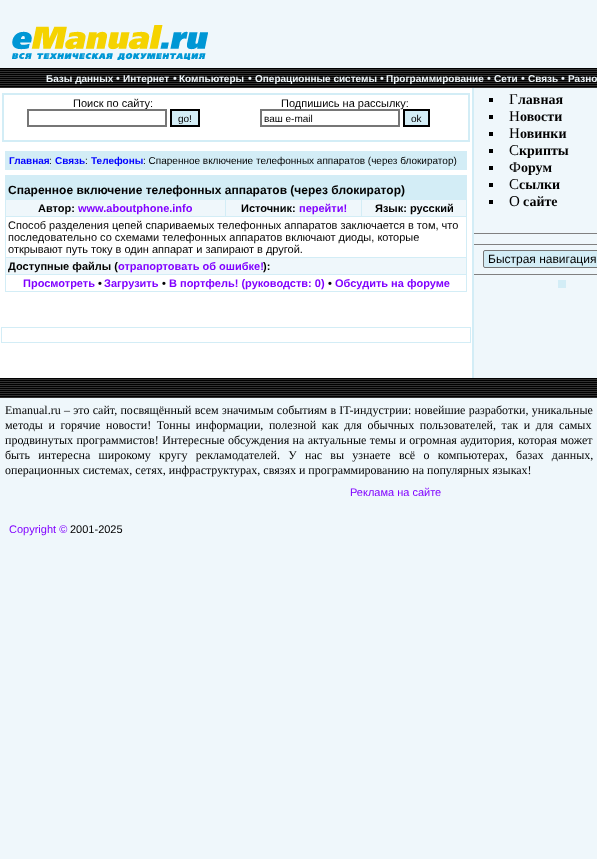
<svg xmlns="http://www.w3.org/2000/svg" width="597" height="859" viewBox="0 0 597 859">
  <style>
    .t1 { font: bold 10px Liberation Sans; fill: #eff7fb; }
    .t2 { font: 11px Liberation Sans; fill: #eff7fb; }
    .t3 { font: 11px Liberation Sans; fill: #000; }
    .t4 { font: 10px Liberation Sans; fill: #000; }
    .t5 { font: bold 10px Liberation Sans; fill: #00f; }
    .t6 { font: bold 12px Liberation Sans; fill: #000; }
    .t7 { font: bold 11px Liberation Sans; fill: #000; }
    .t8 { font: bold 11px Liberation Sans; fill: #8000ff; }
    .t9 { font: 15px Liberation Serif; fill: #000; }
    .t10 { font: bold 14px Liberation Serif; fill: #000; }
    .t11 { font: 12px Liberation Sans; fill: #000; }
    .t12 { font: 12px Liberation Serif; fill: #000; }
    .t13 { font: 11px Liberation Sans; fill: #8000ff; }
  </style>
  <rect width="100%" height="100%" fill="#eff7fb"/>
  <rect x="0" y="88" width="472" height="290" fill="#fff"/>
  <image x="12" y="25" width="196" height="35" href="images/1.png"/>
  <rect x="0" y="68" width="597" height="1" fill="#000"/>
  <image x="0" y="69" width="597" height="19" href="images/2.png"/>
  <text x="46" y="82" class="t1">Базы данных</text>
  <text x="116" y="82" class="t2">•</text>
  <text x="123" y="82" class="t1">Интернет</text>
  <text x="173" y="82" class="t2">•</text>
  <text x="179" y="82" class="t1">Компьютеры</text>
  <text x="248" y="82" class="t2">•</text>
  <text x="255" y="82" class="t1">Операционные системы</text>
  <text x="380" y="82" class="t2">•</text>
  <text x="386" y="82" class="t1">Программирование</text>
  <text x="487" y="82" class="t2">•</text>
  <text x="494" y="82" class="t1">Сети</text>
  <text x="521" y="82" class="t2">•</text>
  <text x="528" y="82" class="t1">Связь</text>
  <text x="561" y="82" class="t2">•</text>
  <text x="568" y="82" class="t1">Разно</text>
  <rect x="2" y="93" width="468" height="49" fill="#d3edf6"/>
  <rect x="4" y="95" width="464" height="45" fill="#fff"/>
  <text x="73" y="107" class="t3">Поиск по сайту:</text>
  <rect x="28" y="110" width="138" height="16" fill="none" stroke="#767676" stroke-width="2"/>
  <rect x="171" y="110" width="28" height="16" fill="#d3edf6" stroke="#000" stroke-width="2"/>
  <text x="178" y="122" class="t4">go!</text>
  <text x="281" y="107" class="t3">Подпишись на рассылку:</text>
  <rect x="261" y="110" width="138" height="16" fill="none" stroke="#767676" stroke-width="2"/>
  <text x="264" y="122" class="t4">ваш e-mail</text>
  <rect x="404" y="110" width="25" height="16" fill="#d3edf6" stroke="#000" stroke-width="2"/>
  <text x="411" y="122" class="t4">ok</text>
  <rect x="5" y="151" width="462" height="19" fill="#d3edf6"/>
  <text x="9" y="164" class="t5">Главная</text>
  <text x="49" y="164" class="t4">:</text>
  <text x="55" y="164" class="t5">Связь</text>
  <text x="85" y="164" class="t4">:</text>
  <text x="91" y="164" class="t5">Телефоны</text>
  <text x="143" y="164" class="t4">: Спаренное включение телефонных аппаратов (через блокиратор)</text>
  <rect x="5" y="175" width="462" height="117" fill="#d3edf6"/>
  <text x="8" y="194" class="t6">Спаренное включение телефонных аппаратов (через блокиратор)</text>
  <rect x="6" y="200" width="219" height="16" fill="#eff7fb"/>
  <text x="38" y="212" class="t7">Автор:</text>
  <text x="78" y="212" class="t8">www.aboutphone.info</text>
  <rect x="226" y="200" width="135" height="16" fill="#eff7fb"/>
  <text x="241" y="212" class="t7">Источник:</text>
  <text x="299" y="212" class="t8">перейти!</text>
  <rect x="362" y="200" width="104" height="16" fill="#eff7fb"/>
  <text x="375" y="212" class="t7">Язык: русский</text>
  <rect x="6" y="217" width="460" height="40" fill="#fff"/>
  <text x="8" y="229" class="t3">Способ разделения цепей спариваемых телефонных аппаратов заключается в том, что</text>
  <text x="8" y="241" class="t3">последовательно со схемами телефонных аппаратов включают диоды, которые</text>
  <text x="8" y="253" class="t3">открывают путь току в один аппарат и запирают в другой.</text>
  <rect x="6" y="258" width="460" height="16" fill="#eff7fb"/>
  <text x="8" y="270" class="t7">Доступные файлы (</text>
  <text x="118" y="270" class="t8">отрапортовать об ошибке!</text>
  <text x="263" y="270" class="t7">):</text>
  <rect x="6" y="275" width="460" height="16" fill="#fff"/>
  <text x="23" y="287" class="t8">Просмотреть</text>
  <text x="98" y="287" class="t7">•</text>
  <text x="104" y="287" class="t8">Загрузить</text>
  <text x="162" y="287" class="t7">•</text>
  <text x="169" y="287" class="t8">В портфель! (руководств: 0)</text>
  <text x="328" y="287" class="t7">•</text>
  <text x="335" y="287" class="t8">Обсудить на форуме</text>
  <rect x="1" y="327" width="470" height="16" fill="#d3edf6"/>
  <rect x="2" y="328" width="468" height="14" fill="#fff"/>
  <rect x="472" y="88" width="2" height="290" fill="#d3edf6"/>
  <rect x="489" y="98" width="4" height="4" fill="#000"/>
  <text x="509" y="104" class="t9">Г</text>
  <text x="518" y="104" class="t10">лавная</text>
  <rect x="489" y="115" width="4" height="4" fill="#000"/>
  <text x="509" y="121" class="t9">Н</text>
  <text x="520" y="121" class="t10">овости</text>
  <rect x="489" y="132" width="4" height="4" fill="#000"/>
  <text x="509" y="138" class="t9">Н</text>
  <text x="520" y="138" class="t10">овинки</text>
  <rect x="489" y="149" width="4" height="4" fill="#000"/>
  <text x="509" y="155" class="t9">С</text>
  <text x="519" y="155" class="t10">крипты</text>
  <rect x="489" y="166" width="4" height="4" fill="#000"/>
  <text x="509" y="172" class="t9">Ф</text>
  <text x="521" y="172" class="t10">орум</text>
  <rect x="489" y="183" width="4" height="4" fill="#000"/>
  <text x="509" y="189" class="t9">С</text>
  <text x="519" y="189" class="t10">сылки</text>
  <rect x="489" y="200" width="4" height="4" fill="#000"/>
  <text x="509" y="206" class="t9">О</text>
  <text x="523" y="206" class="t10">сайте</text>
  <rect x="474" y="233" width="123" height="1" fill="#808080"/>
  <rect x="474" y="244" width="123" height="1" fill="#808080"/>
  <rect x="483.5" y="250.5" width="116" height="17" rx="1.5" fill="#d3edf6" stroke="#767676"/>
  <text x="488" y="263" class="t11">Быстрая навигация</text>
  <rect x="474" y="274" width="123" height="1" fill="#808080"/>
  <rect x="558" y="280" width="8" height="8" fill="#d3edf6"/>
  <rect x="0" y="378" width="597" height="1" fill="#000"/>
  <image x="0" y="379" width="298" height="19" href="images/3.png"/>
  <image x="298" y="379" width="299" height="19" href="images/4.png"/>
  <text x="5" y="414" word-spacing="0.25" class="t12">Emanual.ru – это сайт, посвящённый всем значимым событиям в IT-индустрии: новейшие разработки, уникальные</text>
  <text x="5" y="429" word-spacing="2.6" class="t12">методы и горячие новости! Тонны информации, полезной как для обычных пользователей, так и для самых</text>
  <text x="5" y="444" word-spacing="0.4" class="t12">продвинутых программистов! Интересные обсуждения на актуальные темы и огромная аудитория, которая может</text>
  <text x="5" y="459" word-spacing="5.25" class="t12">быть интересна широкому кругу рекламодателей. У нас вы узнаете всё о компьютерах, базах данных,</text>
  <text x="5" y="474" class="t12">операционных системах, сетях, инфраструктурах, связях и программированию на популярных языках!</text>
  <text x="350" y="496" class="t13">Реклама на сайте</text>
  <text x="9" y="533" class="t13">Copyright ©</text>
  <text x="70" y="533" class="t3">2001-2025</text>
</svg>
